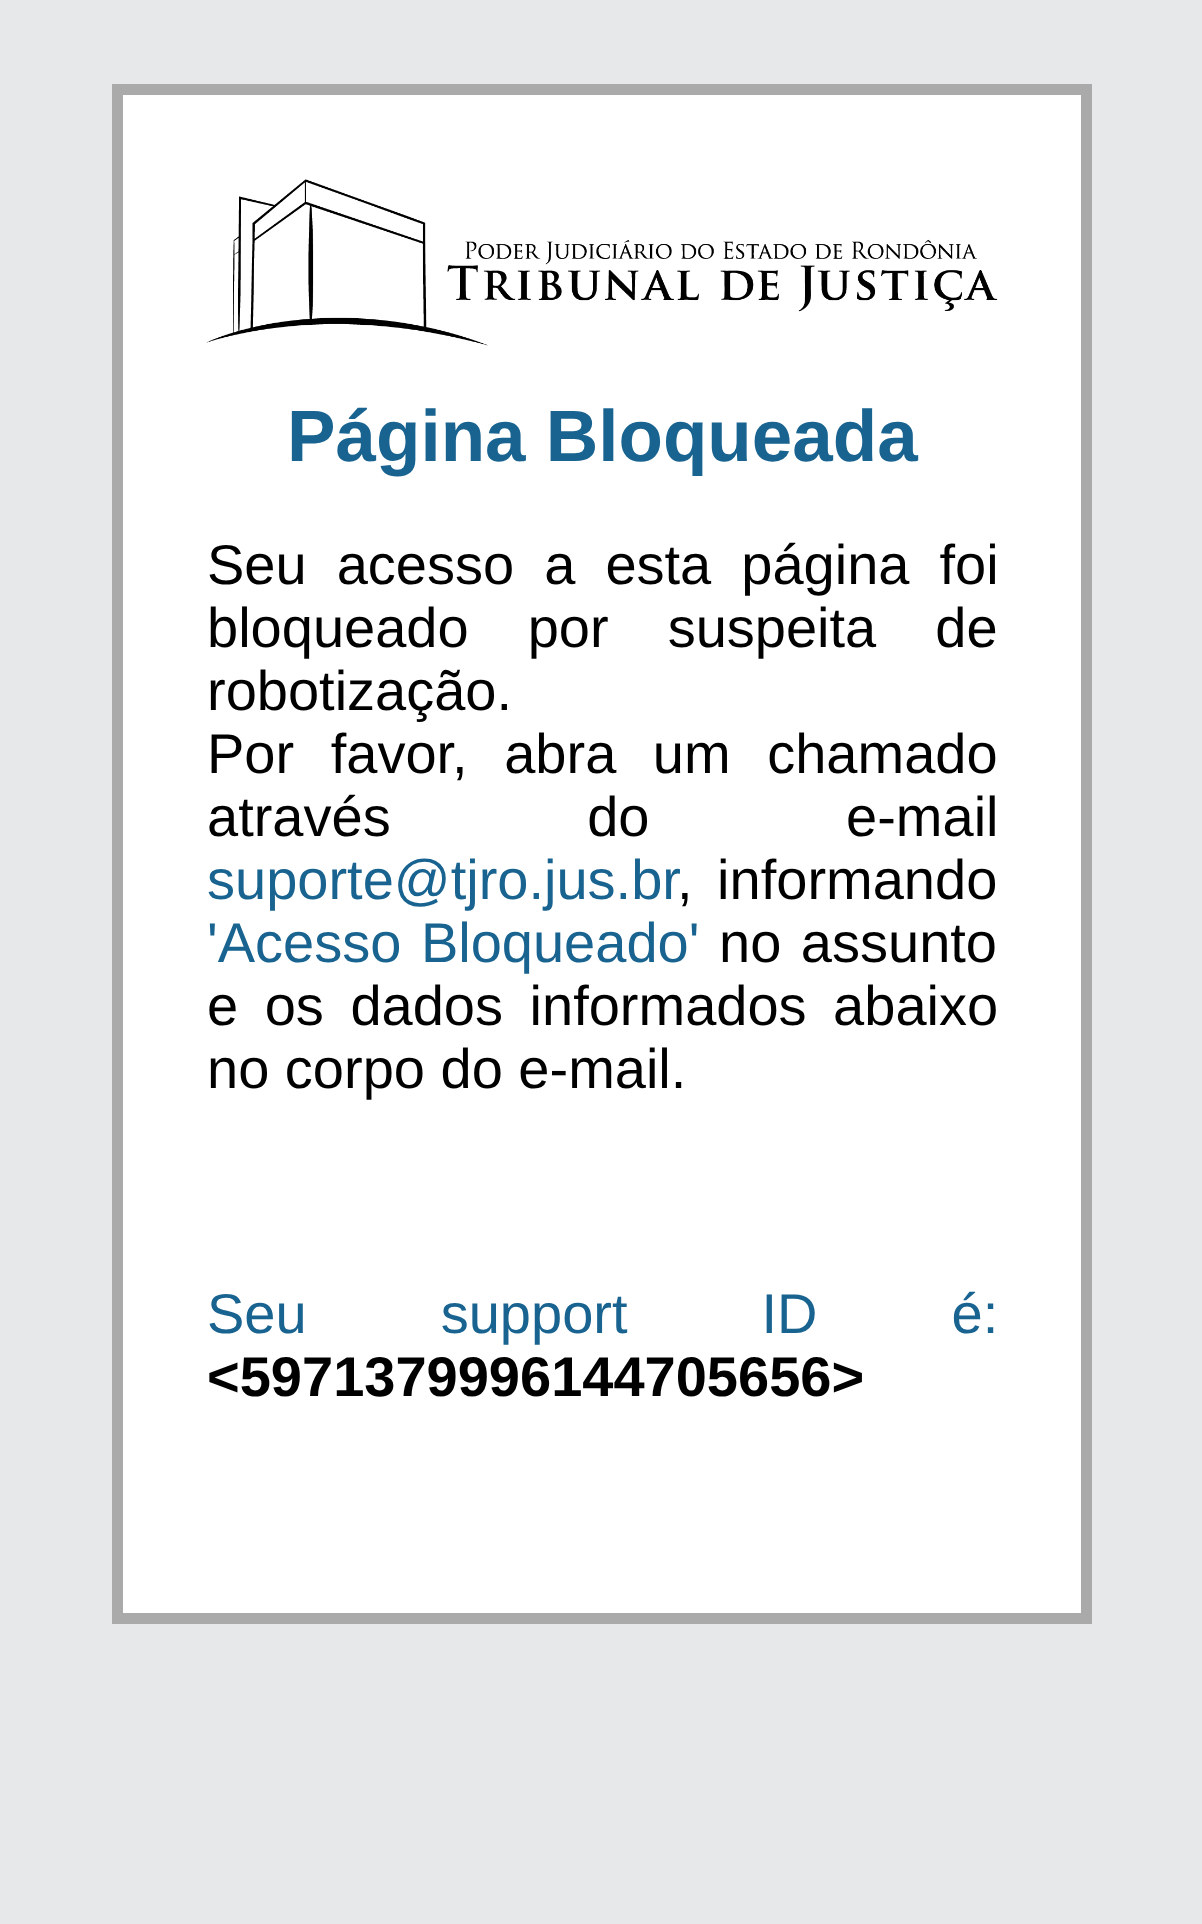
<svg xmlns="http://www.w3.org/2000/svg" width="1202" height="1924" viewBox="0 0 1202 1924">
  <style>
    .t1 { font: bold 72.75px Liberation Sans; fill: #196390; }
    .t2 { font: 56px Liberation Sans; fill: #000; }
    .t3 { font: 56px Liberation Sans; fill: #196390; }
    .t4 { font: bold 56px Liberation Sans; fill: #000; }
  </style>
  <rect width="100%" height="100%" fill="#e7e8e9"/>
  <rect x="117.5" y="89.5" width="969" height="1529" fill="#fff" stroke="#aaa" stroke-width="11"/>
  <image x="206" y="179" width="792" height="167" href="images/1.png"/>
  <text x="287" y="461" class="t1">Página Bloqueada</text>
  <text x="207" y="584" word-spacing="14.5" class="t2">Seu acesso a esta página foi</text>
  <text x="207" y="647" word-spacing="43.5" class="t2">bloqueado por suspeita de</text>
  <text x="207" y="710" class="t2">robotização.</text>
  <text x="207" y="773" word-spacing="21" class="t2">Por favor, abra um chamado</text>
  <text x="207" y="836" word-spacing="181" class="t2">através do e-mail</text>
  <text x="207" y="899" class="t3">suporte@tjro.jus.br</text>
  <text x="677" y="899" word-spacing="9" class="t2">, informando</text>
  <text x="207" y="962" word-spacing="4" class="t3">'Acesso Bloqueado'</text>
  <text x="719" y="962" word-spacing="4" class="t2">no assunto</text>
  <text x="207" y="1025" word-spacing="11" class="t2">e os dados informados abaixo</text>
  <text x="207" y="1088" class="t2">no corpo do e-mail.</text>
  <text x="207" y="1333" word-spacing="118.5" class="t3">Seu support ID é:</text>
  <text x="207" y="1396" class="t4">&lt;5971379996144705656&gt;</text>
</svg>
